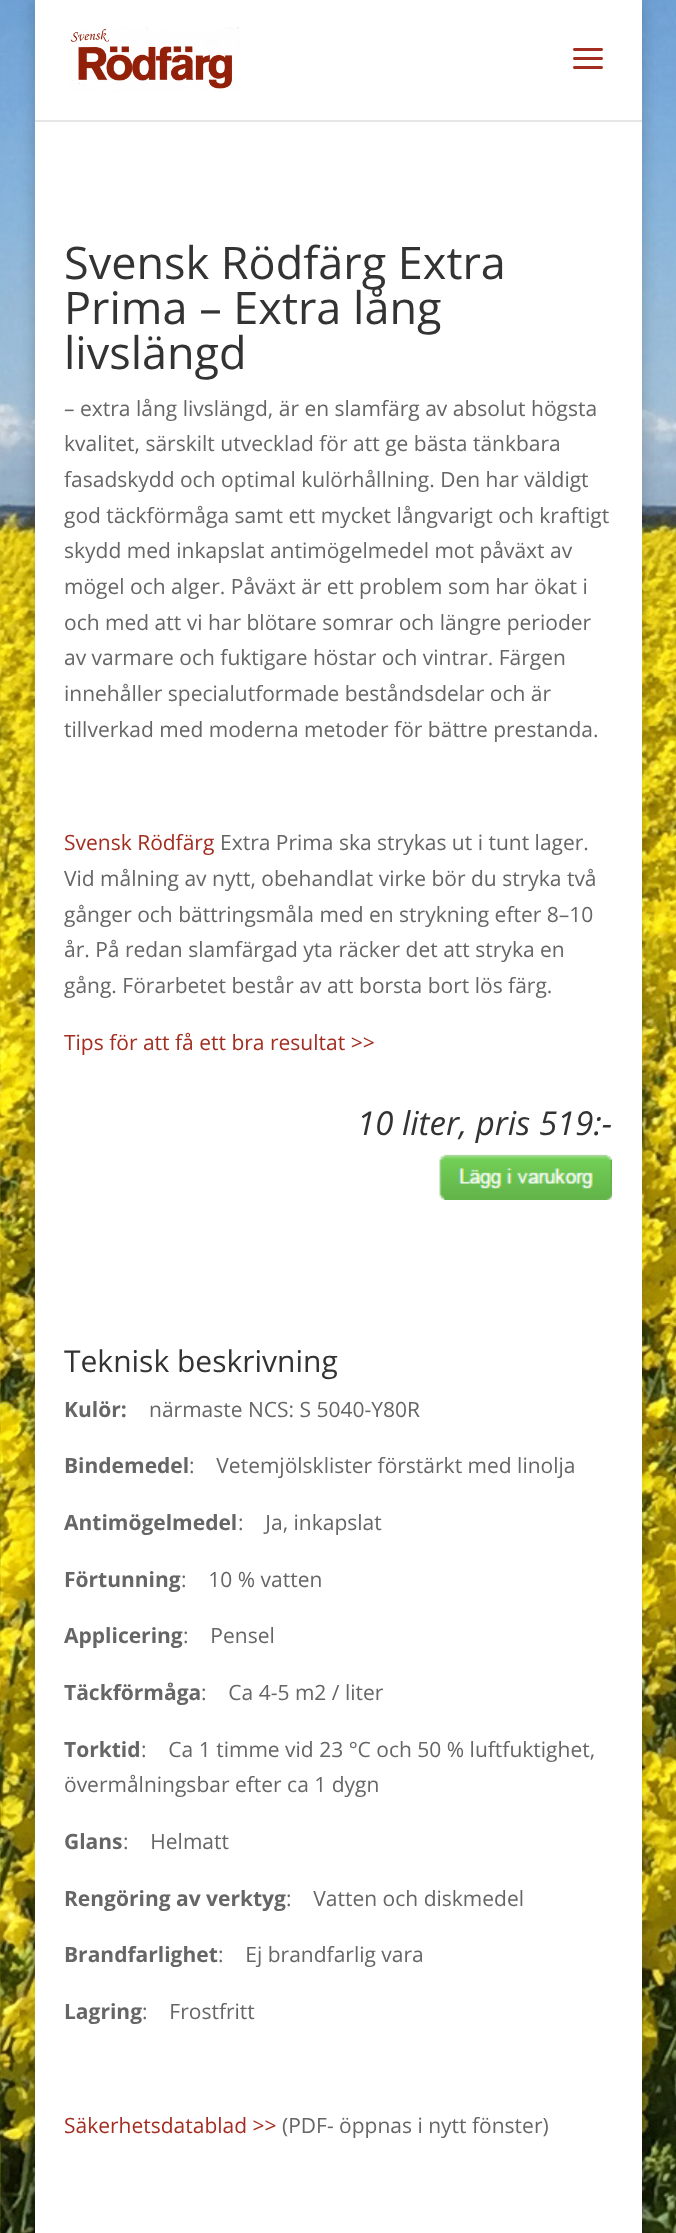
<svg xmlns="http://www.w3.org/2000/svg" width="676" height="2233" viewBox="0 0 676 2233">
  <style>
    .t1 { font: 45px Open Sans; fill: #333; }
    .t2 { font: 21px Open Sans; fill: #666; }
    .t3 { font: 21px Open Sans; fill: #a32d20; }
    .t4 { font: italic 33px Open Sans; fill: #333; }
    .t5 { font: 30px Open Sans; fill: #333; }
    .t6 { font: bold 21px Open Sans; fill: #666; }
  </style>
  <rect width="100%" height="100%" fill="#fff"/>
  <image x="0" y="0" width="676" height="2233" href="images/1.png"/>
  <rect x="35" y="0" width="607" height="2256" fill="#00000033" filter="blur(7.5px)"/>
  <rect x="35" y="120" width="607" height="2" fill="#e6e6e6"/>
  <rect x="35" y="0" width="607" height="120" fill="#fff"/>
  <image x="70" y="27" width="169" height="66" href="images/2.png"/>
  <image x="573" y="48" width="30" height="21" href="images/3.png"/>
  <rect x="35" y="122" width="607" height="2111" fill="#fff"/>
  <text x="64" y="279" class="t1">Svensk Rödfärg Extra</text>
  <text x="64" y="324" class="t1">Prima – Extra lång</text>
  <text x="64" y="369" class="t1">livslängd</text>
  <text x="64" y="416" class="t2">– extra lång livslängd, är en slamfärg av absolut högsta</text>
  <text x="64" y="451" class="t2">kvalitet, särskilt utvecklad för att ge bästa tänkbara</text>
  <text x="64" y="487" class="t2">fasadskydd och optimal kulörhållning. Den har väldigt</text>
  <text x="64" y="523" class="t2">god täckförmåga samt ett mycket långvarigt och kraftigt</text>
  <text x="64" y="558" class="t2">skydd med inkapslat antimögelmedel mot påväxt av</text>
  <text x="64" y="594" class="t2">mögel och alger. Påväxt är ett problem som har ökat i</text>
  <text x="64" y="630" class="t2">och med att vi har blötare somrar och längre perioder</text>
  <text x="64" y="665" class="t2">av varmare och fuktigare höstar och vintrar. Färgen</text>
  <text x="64" y="701" class="t2">innehåller specialutformade beståndsdelar och är</text>
  <text x="64" y="737" class="t2">tillverkad med moderna metoder för bättre prestanda.</text>
  <text x="64" y="850" class="t3">Svensk Rödfärg</text>
  <text x="220" y="850" class="t2">Extra Prima ska strykas ut i tunt lager.</text>
  <text x="64" y="886" class="t2">Vid målning av nytt, obehandlat virke bör du stryka två</text>
  <text x="64" y="922" class="t2">gånger och bättringsmåla med en strykning efter 8–10</text>
  <text x="64" y="957" class="t2">år. På redan slamfärgad yta räcker det att stryka en</text>
  <text x="64" y="993" class="t2">gång. Förarbetet består av att borsta bort lös färg.</text>
  <text x="64" y="1050" class="t3">Tips för att få ett bra resultat &gt;&gt;</text>
  <text x="357" y="1135" class="t4">10 liter, pris 519:-</text>
  <image x="439" y="1154" width="173" height="46" href="images/4.png"/>
  <text x="64" y="1372" class="t5">Teknisk beskrivning</text>
  <text x="64" y="1417" class="t6">Kulör:</text>
  <text x="149" y="1417" class="t2">närmaste NCS: S 5040-Y80R</text>
  <text x="64" y="1473" class="t6">Bindemedel</text>
  <text x="189" y="1473" class="t2" xml:space="preserve">:    Vetemjölsklister förstärkt med linolja</text>
  <text x="64" y="1530" class="t6">Antimögelmedel</text>
  <text x="238" y="1530" class="t2" xml:space="preserve">:    Ja, inkapslat</text>
  <text x="64" y="1587" class="t6">Förtunning</text>
  <text x="181" y="1587" class="t2" xml:space="preserve">:    10 % vatten</text>
  <text x="64" y="1643" class="t6">Applicering</text>
  <text x="183" y="1643" class="t2" xml:space="preserve">:    Pensel</text>
  <text x="64" y="1700" class="t6">Täckförmåga</text>
  <text x="201" y="1700" class="t2" xml:space="preserve">:    Ca 4-5 m2 / liter</text>
  <text x="64" y="1757" class="t6">Torktid</text>
  <text x="141" y="1757" class="t2" xml:space="preserve">:    Ca 1 timme vid 23 °C och 50 % luftfuktighet,</text>
  <text x="64" y="1792" class="t2">övermålningsbar efter ca 1 dygn</text>
  <text x="64" y="1849" class="t6">Glans</text>
  <text x="123" y="1849" class="t2" xml:space="preserve">:    Helmatt</text>
  <text x="64" y="1906" class="t6">Rengöring av verktyg</text>
  <text x="286" y="1906" class="t2" xml:space="preserve">:    Vatten och diskmedel</text>
  <text x="64" y="1962" class="t6">Brandfarlighet</text>
  <text x="218" y="1962" class="t2" xml:space="preserve">:    Ej brandfarlig vara</text>
  <text x="64" y="2019" class="t6">Lagring</text>
  <text x="142" y="2019" class="t2" xml:space="preserve">:    Frostfritt</text>
  <text x="64" y="2133" class="t3">Säkerhetsdatablad &gt;&gt;</text>
  <text x="282" y="2133" class="t2">(PDF- öppnas i nytt fönster)</text>
</svg>
